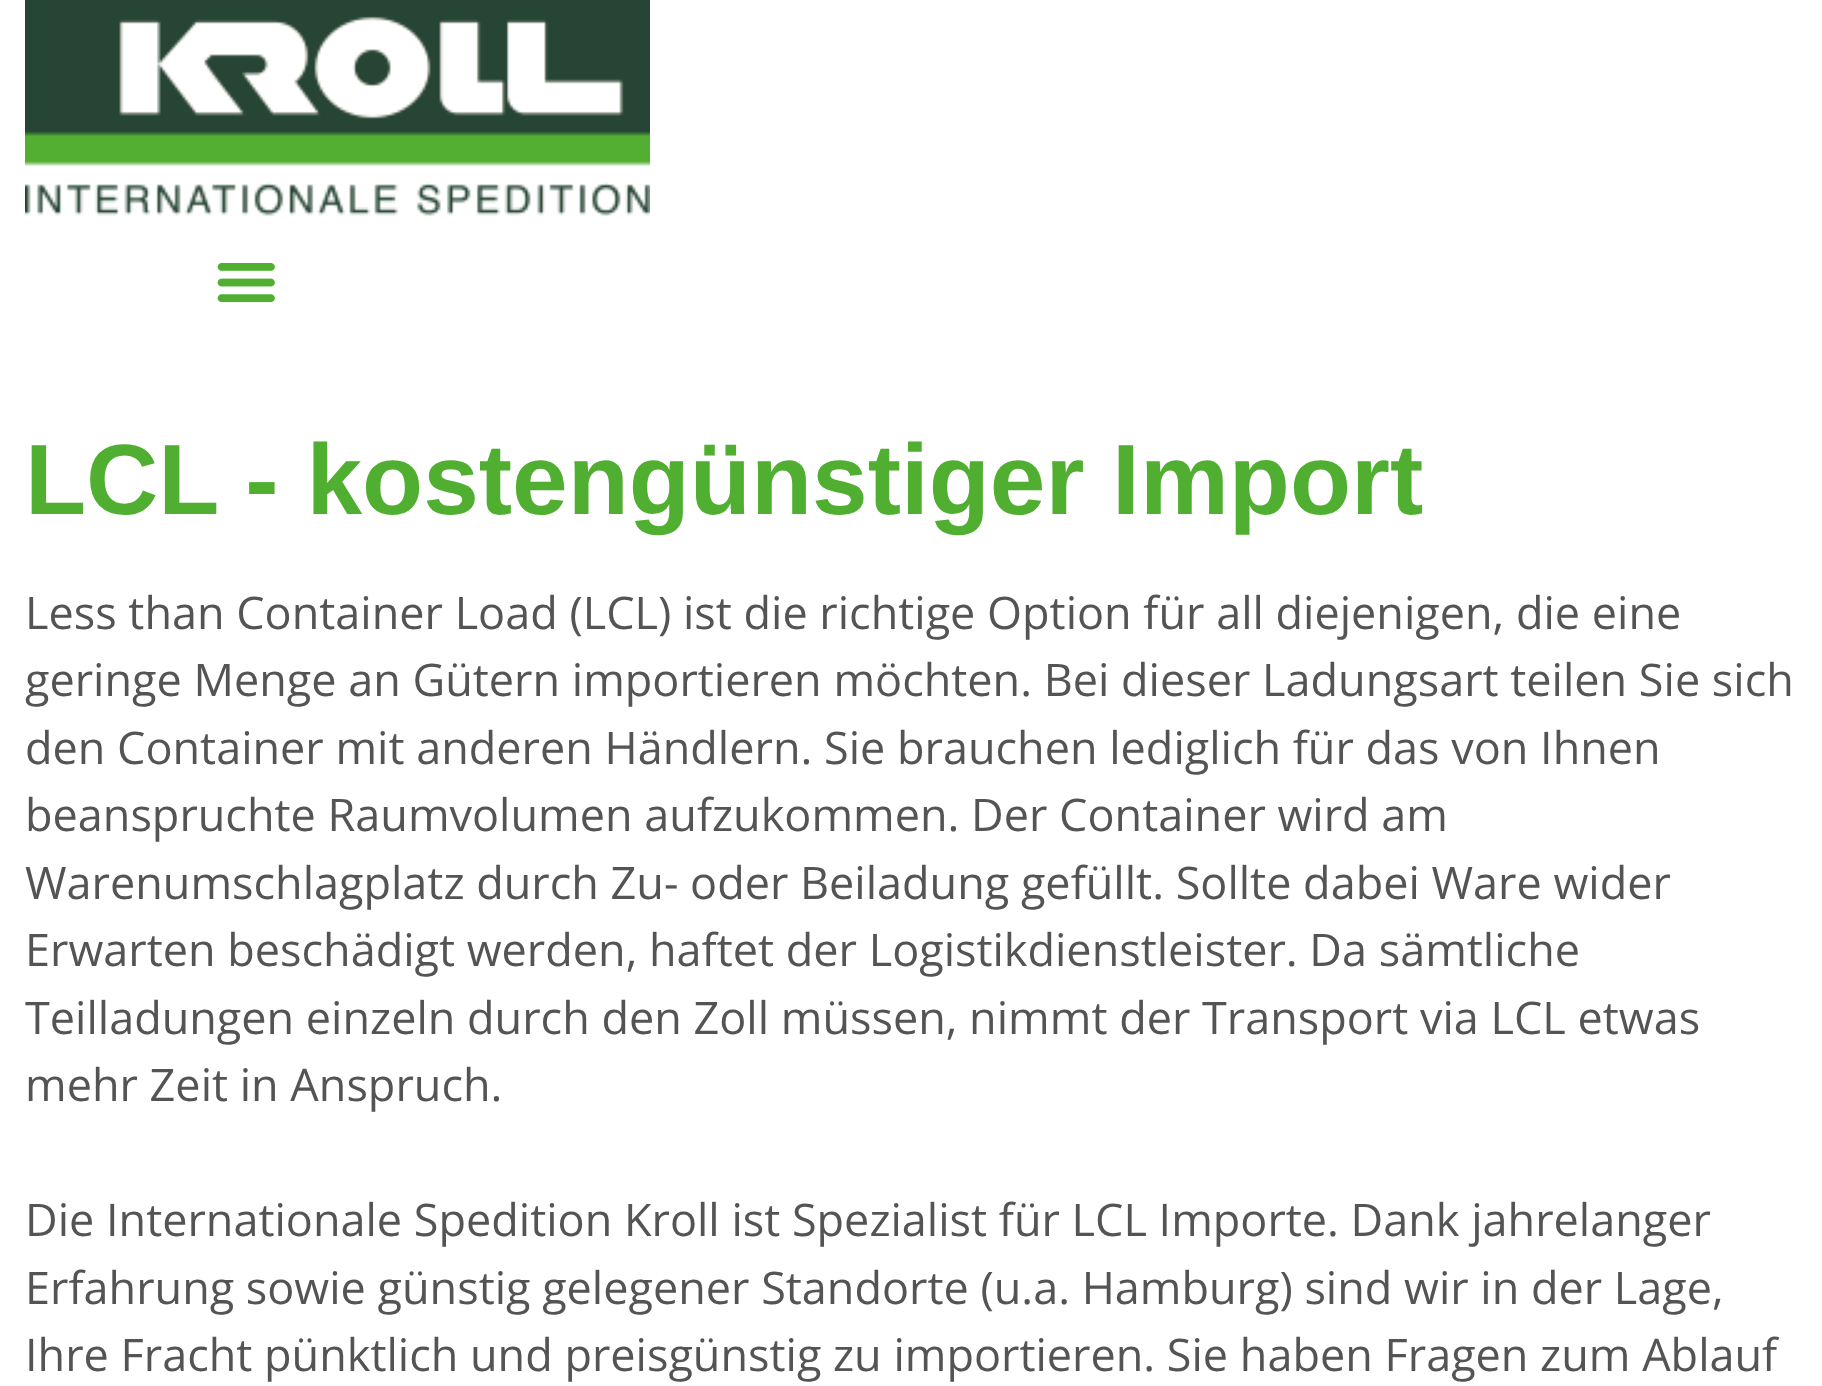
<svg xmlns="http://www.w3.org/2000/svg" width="1822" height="1386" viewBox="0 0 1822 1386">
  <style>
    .t1 { font: bold 100px Liberation Sans; fill: #50af31; }
    .t2 { font: 45px Open Sans; fill: #545454; }
  </style>
  <rect width="100%" height="100%" fill="#fff"/>
  <image x="25" y="0" width="625" height="216" href="images/1.png"/>
  <image x="217" y="263" width="58" height="40" href="images/2.png"/>
  <text x="25" y="514" class="t1">LCL - kostengünstiger Import</text>
  <text x="25" y="629" class="t2">Less than Container Load (LCL) ist die richtige Option für all diejenigen, die eine</text>
  <text x="25" y="696" class="t2">geringe Menge an Gütern importieren möchten. Bei dieser Ladungsart teilen Sie sich</text>
  <text x="25" y="764" class="t2">den Container mit anderen Händlern. Sie brauchen lediglich für das von Ihnen</text>
  <text x="25" y="831" class="t2">beanspruchte Raumvolumen aufzukommen. Der Container wird am</text>
  <text x="25" y="899" class="t2">Warenumschlagplatz durch Zu- oder Beiladung gefüllt. Sollte dabei Ware wider</text>
  <text x="25" y="966" class="t2">Erwarten beschädigt werden, haftet der Logistikdienstleister. Da sämtliche</text>
  <text x="25" y="1034" class="t2">Teilladungen einzeln durch den Zoll müssen, nimmt der Transport via LCL etwas</text>
  <text x="25" y="1101" class="t2">mehr Zeit in Anspruch.</text>
  <text x="25" y="1236" class="t2">Die Internationale Spedition Kroll ist Spezialist für LCL Importe. Dank jahrelanger</text>
  <text x="25" y="1304" class="t2">Erfahrung sowie günstig gelegener Standorte (u.a. Hamburg) sind wir in der Lage,</text>
  <text x="25" y="1371" class="t2">Ihre Fracht pünktlich und preisgünstig zu importieren. Sie haben Fragen zum Ablauf</text>
</svg>
